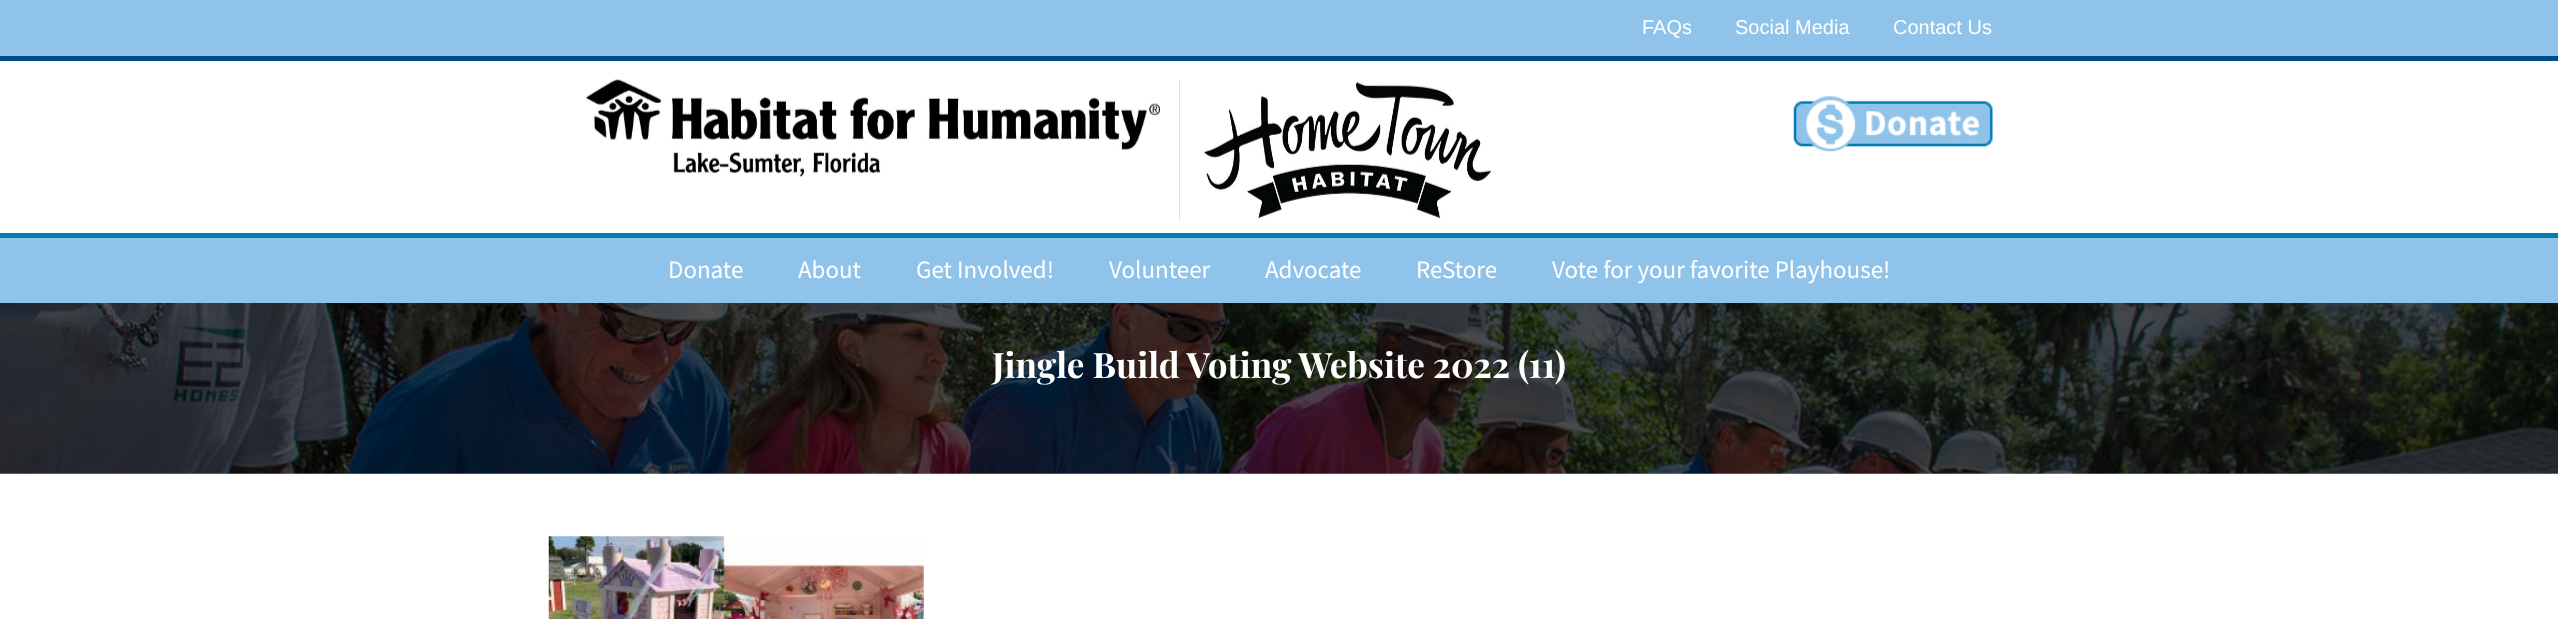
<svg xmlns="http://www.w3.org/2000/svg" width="2558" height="619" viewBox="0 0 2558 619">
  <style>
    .t1 { font: 20px Liberation Sans; fill: #fff; }
    .t2 { font: 25px Source Sans Pro; fill: #fff; }
    .t3 { font: bold 35px Playfair Display; fill: #fff; }
  </style>
  <rect width="100%" height="100%" fill="#fff"/>
  <rect x="0" y="0" width="2558" height="56" fill="#8fc3ea"/>
  <rect x="0" y="56" width="2558" height="5" fill="#004c8b"/>
  <text x="1642" y="34" class="t1">FAQs</text>
  <text x="1735" y="34" class="t1">Social Media</text>
  <text x="1893" y="34" class="t1">Contact Us</text>
  <image x="586" y="79" width="574" height="98" href="images/1.png"/>
  <rect x="1179" y="80" width="1" height="140" fill="#e1e1e1"/>
  <image x="1204" y="80" width="287" height="140" href="images/2.png"/>
  <image x="1793" y="96" width="200" height="56" href="images/3.png"/>
  <rect x="0" y="238" width="2558" height="65" fill="#8fc3ea"/>
  <rect x="0" y="233" width="2558" height="5" fill="#007db1"/>
  <text x="668" y="278" class="t2">Donate</text>
  <text x="798" y="278" class="t2">About</text>
  <text x="916" y="278" class="t2">Get Involved!</text>
  <text x="1109" y="278" class="t2">Volunteer</text>
  <text x="1265" y="278" class="t2">Advocate</text>
  <text x="1416" y="278" class="t2">ReStore</text>
  <text x="1552" y="278" class="t2">Vote for your favorite Playhouse!</text>
  <image x="0" y="303" width="2558" height="171" href="images/4.png"/>
  <text x="992" y="378" class="t3">Jingle Build Voting Website 2022 (11)</text>
  <image x="548" y="536" width="376" height="83" href="images/5.png"/>
</svg>
